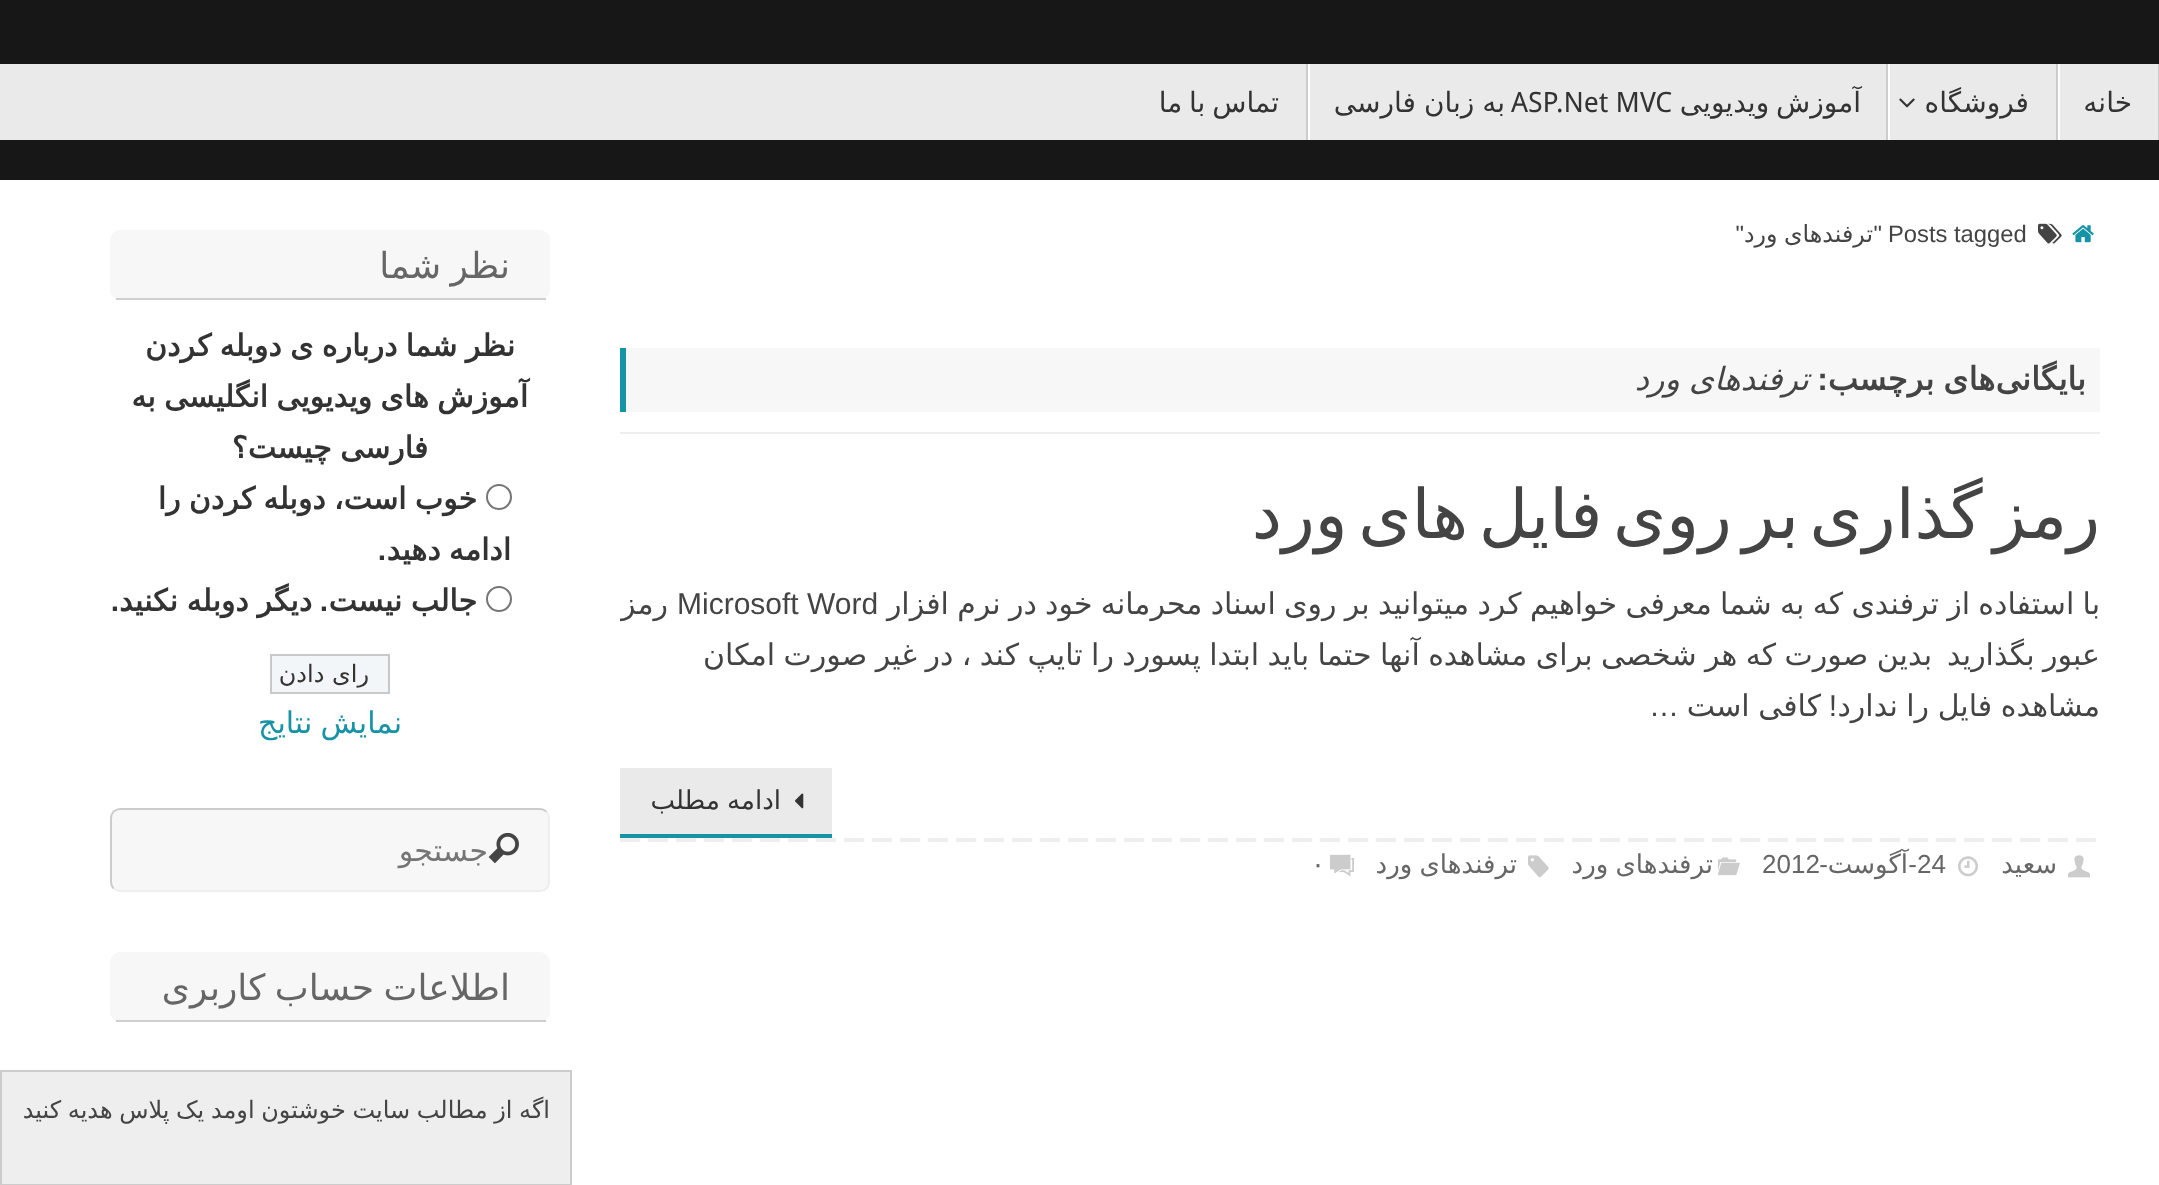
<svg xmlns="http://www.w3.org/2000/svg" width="2159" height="1185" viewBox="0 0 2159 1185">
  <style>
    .t1 { font: 28px DejaVu Sans; direction: rtl; fill: #333; }
    .t2 { font: 28px Droid Sans; fill: #333; }
    .t3 { font: 23.75px Liberation Sans; fill: #444; }
    .t4 { font: 23.75px Liberation Sans; direction: rtl; fill: #444; }
    .t5 { font: 23.75px DejaVu Sans; direction: rtl; fill: #444; }
    .t6 { font: bold 32px DejaVu Sans; direction: rtl; fill: #444; }
    .t7 { font: bold 32px Liberation Sans; direction: rtl; fill: #444; }
    .t8 { font: italic 32px DejaVu Sans; direction: rtl; fill: #444; }
    .t9 { font: 68px DejaVu Sans; direction: rtl; fill: #444; }
    .t10 { font: 30px DejaVu Sans; direction: rtl; fill: #444; }
    .t11 { font: 30px Liberation Sans; fill: #444; }
    .t12 { font: 30px Liberation Sans; direction: rtl; fill: #444; }
    .t13 { font: 26px DejaVu Sans; direction: rtl; fill: #333; }
    .t14 { font: 26px DejaVu Sans; direction: rtl; fill: #666; }
    .t15 { font: 26px Liberation Sans; fill: #666; }
    .t16 { font: 26px Liberation Sans; direction: rtl; fill: #666; }
    .t17 { font: 26px DejaVu Sans; fill: #666; }
    .t18 { font: 36px DejaVu Sans; direction: rtl; fill: #666; }
    .t19 { font: bold 30px DejaVu Sans; direction: rtl; fill: #333; }
    .t20 { font: bold 30px Liberation Sans; direction: rtl; fill: #333; }
    .t21 { font: 24px DejaVu Sans; direction: rtl; fill: #333; }
    .t22 { font: 30px DejaVu Sans; direction: rtl; fill: #1693a5; }
    .t23 { font: 30px DejaVu Sans; direction: rtl; fill: #757575; }
    .t24 { font: 24px DejaVu Sans; direction: rtl; fill: #444; }
  </style>
  <defs>
    <clipPath id="clip1"><rect x="620" y="474" width="1480" height="416"/></clipPath>
  </defs>
  <rect width="100%" height="100%" fill="#171717"/>
  <rect x="0" y="64" width="2158" height="76" fill="#eaeaea"/>
  <rect x="2158" y="64" width="1" height="76" fill="#ccc"/>
  <text x="2132" y="112" class="t1">خانه</text>
  <rect x="2058" y="64" width="2" height="76" fill="#fff"/>
  <rect x="2056" y="64" width="2" height="76" fill="#ccc"/>
  <text x="2029" y="112" class="t1">فروشگاه</text>
  <image x="1899" y="98" width="16" height="10" href="images/1.png"/>
  <rect x="1888" y="64" width="2" height="76" fill="#fff"/>
  <rect x="1886" y="64" width="2" height="76" fill="#ccc"/>
  <text x="1861" y="112" word-spacing="-2" class="t1">آموزش ویدیویی</text>
  <text x="1511" y="112" class="t2">ASP.Net MVC</text>
  <text x="1505" y="112" word-spacing="-1" class="t1">به زبان فارسی</text>
  <rect x="1308" y="64" width="2" height="76" fill="#fff"/>
  <rect x="1306" y="64" width="2" height="76" fill="#ccc"/>
  <text x="1279" y="112" word-spacing="-2" class="t1">تماس با ما</text>
  <rect x="0" y="180" width="2159" height="1005" fill="#fff"/>
  <image x="2072" y="225" width="22" height="18" href="images/2.png"/>
  <image x="2038" y="223" width="24" height="21" href="images/3.png"/>
  <text x="1888" y="242" class="t3">Posts tagged</text>
  <text x="1882" y="242" class="t4">"</text>
  <text x="1873" y="242" word-spacing="-1" class="t5">ترفندهای ورد</text>
  <text x="1744" y="242" class="t4">"</text>
  <rect x="620" y="432" width="1480" height="2" fill="#eee"/>
  <rect x="626" y="348" width="1474" height="64" fill="#f7f7f7"/>
  <rect x="620" y="348" width="6" height="64" fill="#1693a5"/>
  <text x="2086" y="390" class="t6">بایگانی</text>
  <text x="1995" y="390" word-spacing="-1" class="t6">های برچسب</text>
  <text x="1828" y="390" class="t7">:</text>
  <text x="1809" y="390" word-spacing="-1" class="t8">ترفندهای ورد</text>
  <g clip-path="url(#clip1)">
    <text x="2100" y="538" word-spacing="-11" class="t9">رمز گذاری بر روی فایل های ورد</text>
    <text x="2100" y="614" word-spacing="-1.25" class="t10">با استفاده از ترفندی که به شما معرفی خواهیم کرد میتوانید بر روی اسناد محرمانه خود در نرم افزار</text>
  </g>
  <text x="677" y="614" class="t11">Microsoft Word</text>
  <g clip-path="url(#clip1)">
    <text x="668" y="614" class="t10">رمز</text>
  </g>
  <text x="2100" y="665" word-spacing="-1.1" class="t10">عبور بگذارید</text>
  <text x="1932" y="665" word-spacing="-1.1" class="t10">بدین صورت که هر شخصی برای مشاهده آنها حتما باید ابتدا پسورد را تایپ کند ، در غیر صورت امکان</text>
  <text x="2100" y="716" word-spacing="-1" class="t10">مشاهده فایل را ندارد</text>
  <text x="1837" y="716" class="t12">!</text>
  <text x="1821" y="716" word-spacing="-1" class="t10">کافی است</text>
  <text x="1679" y="716" class="t12">…</text>
  <rect x="620" y="768" width="212" height="66" fill="#eaeaea"/>
  <rect x="620" y="834" width="212" height="4" fill="#1693a5"/>
  <image x="795" y="793" width="9" height="16" href="images/4.png"/>
  <text x="781" y="809" word-spacing="-1" class="t13">ادامه مطلب</text>
  <image x="620" y="838" width="1476" height="4" href="images/5.png"/>
  <image x="2068" y="855" width="22" height="23" href="images/6.png"/>
  <text x="2057" y="873" class="t14">سعید</text>
  <image x="1958" y="856" width="20" height="21" href="images/7.png"/>
  <text x="1917" y="873" class="t15">24</text>
  <text x="1908" y="873" class="t14">آگوست</text>
  <text x="1917" y="873" class="t16">-</text>
  <text x="1828" y="873" class="t16">-</text>
  <text x="1762" y="873" class="t15">2012</text>
  <image x="1718" y="857" width="22" height="19" href="images/8.png"/>
  <text x="1713" y="873" word-spacing="-1" class="t14">ترفندهای ورد</text>
  <image x="1528" y="855" width="21" height="23" href="images/9.png"/>
  <text x="1517" y="873" word-spacing="-1" class="t14">ترفندهای ورد</text>
  <image x="1330" y="854" width="24" height="23" href="images/10.png"/>
  <text x="1311" y="873" class="t17">۰</text>
  <rect x="110" y="230" width="440" height="70" rx="10" fill="#f7f7f7"/>
  <rect x="116" y="298" width="430" height="2" fill="#cfcfcf"/>
  <text x="510" y="278" word-spacing="-2" class="t18">نظر شما</text>
  <text x="515" y="356" word-spacing="-1.25" class="t19">نظر شما درباره ی دوبله کردن</text>
  <text x="528" y="407" word-spacing="-1.25" class="t19">آموزش های ویدیویی انگلیسی به</text>
  <text x="428" y="458" word-spacing="-1.25" class="t19">فارسی چیست؟</text>
  <circle cx="499" cy="497" r="12" fill="none" stroke="#767676" stroke-width="2"/>
  <text x="477" y="509" word-spacing="-1.25" class="t19">خوب است، دوبله کردن را</text>
  <text x="511" y="560" word-spacing="-1.25" class="t19">ادامه دهید</text>
  <text x="386" y="560" class="t20">.</text>
  <circle cx="499" cy="599" r="12" fill="none" stroke="#767676" stroke-width="2"/>
  <text x="477" y="611" word-spacing="-1" class="t19">جالب نیست</text>
  <text x="328" y="611" class="t20">.</text>
  <text x="312" y="611" word-spacing="-1" class="t19">دیگر دوبله نکنید</text>
  <text x="119" y="611" class="t20">.</text>
  <rect x="271" y="655" width="118" height="38" fill="#f3f6f8" stroke="#c8c8c8" stroke-width="2"/>
  <text x="369" y="682" class="t21">رای دادن</text>
  <text x="402" y="733" word-spacing="-1.25" class="t22">نمایش نتایج</text>
  <rect x="110" y="808" width="440" height="84" rx="10" fill="#f7f7f7"/>
  <path d="M546.5 811.5C548 813.5 549 815.5 549 818V882C549 884.5 548 886.5 546.5 888.5C544.5 890 542.5 891 540 891H120C117.5 891 115.5 890 113.5 888.5" fill="none" stroke="#eee" stroke-width="2"/>
  <path d="M113.5 888.5C112 886.5 111 884.5 111 882V818C111 815.5 112 813.5 113.5 811.5C115.5 810 117.5 809 120 809H540C542.5 809 544.5 810 546.5 811.5" fill="none" stroke="#ccc" stroke-width="2"/>
  <image x="488" y="832" width="31" height="32" href="images/11.png"/>
  <text x="488" y="861" class="t23">جستجو</text>
  <rect x="110" y="952" width="440" height="70" rx="10" fill="#f7f7f7"/>
  <rect x="116" y="1020" width="430" height="2" fill="#cfcfcf"/>
  <text x="510" y="1000" word-spacing="-2" class="t18">اطلاعات حساب کاربری</text>
  <rect x="1" y="1071" width="570" height="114" fill="#eee" stroke="#ccc" stroke-width="2"/>
  <text x="550" y="1118" word-spacing="-1" class="t24">اگه از مطالب سایت خوشتون اومد یک پلاس هدیه کنید</text>
</svg>
